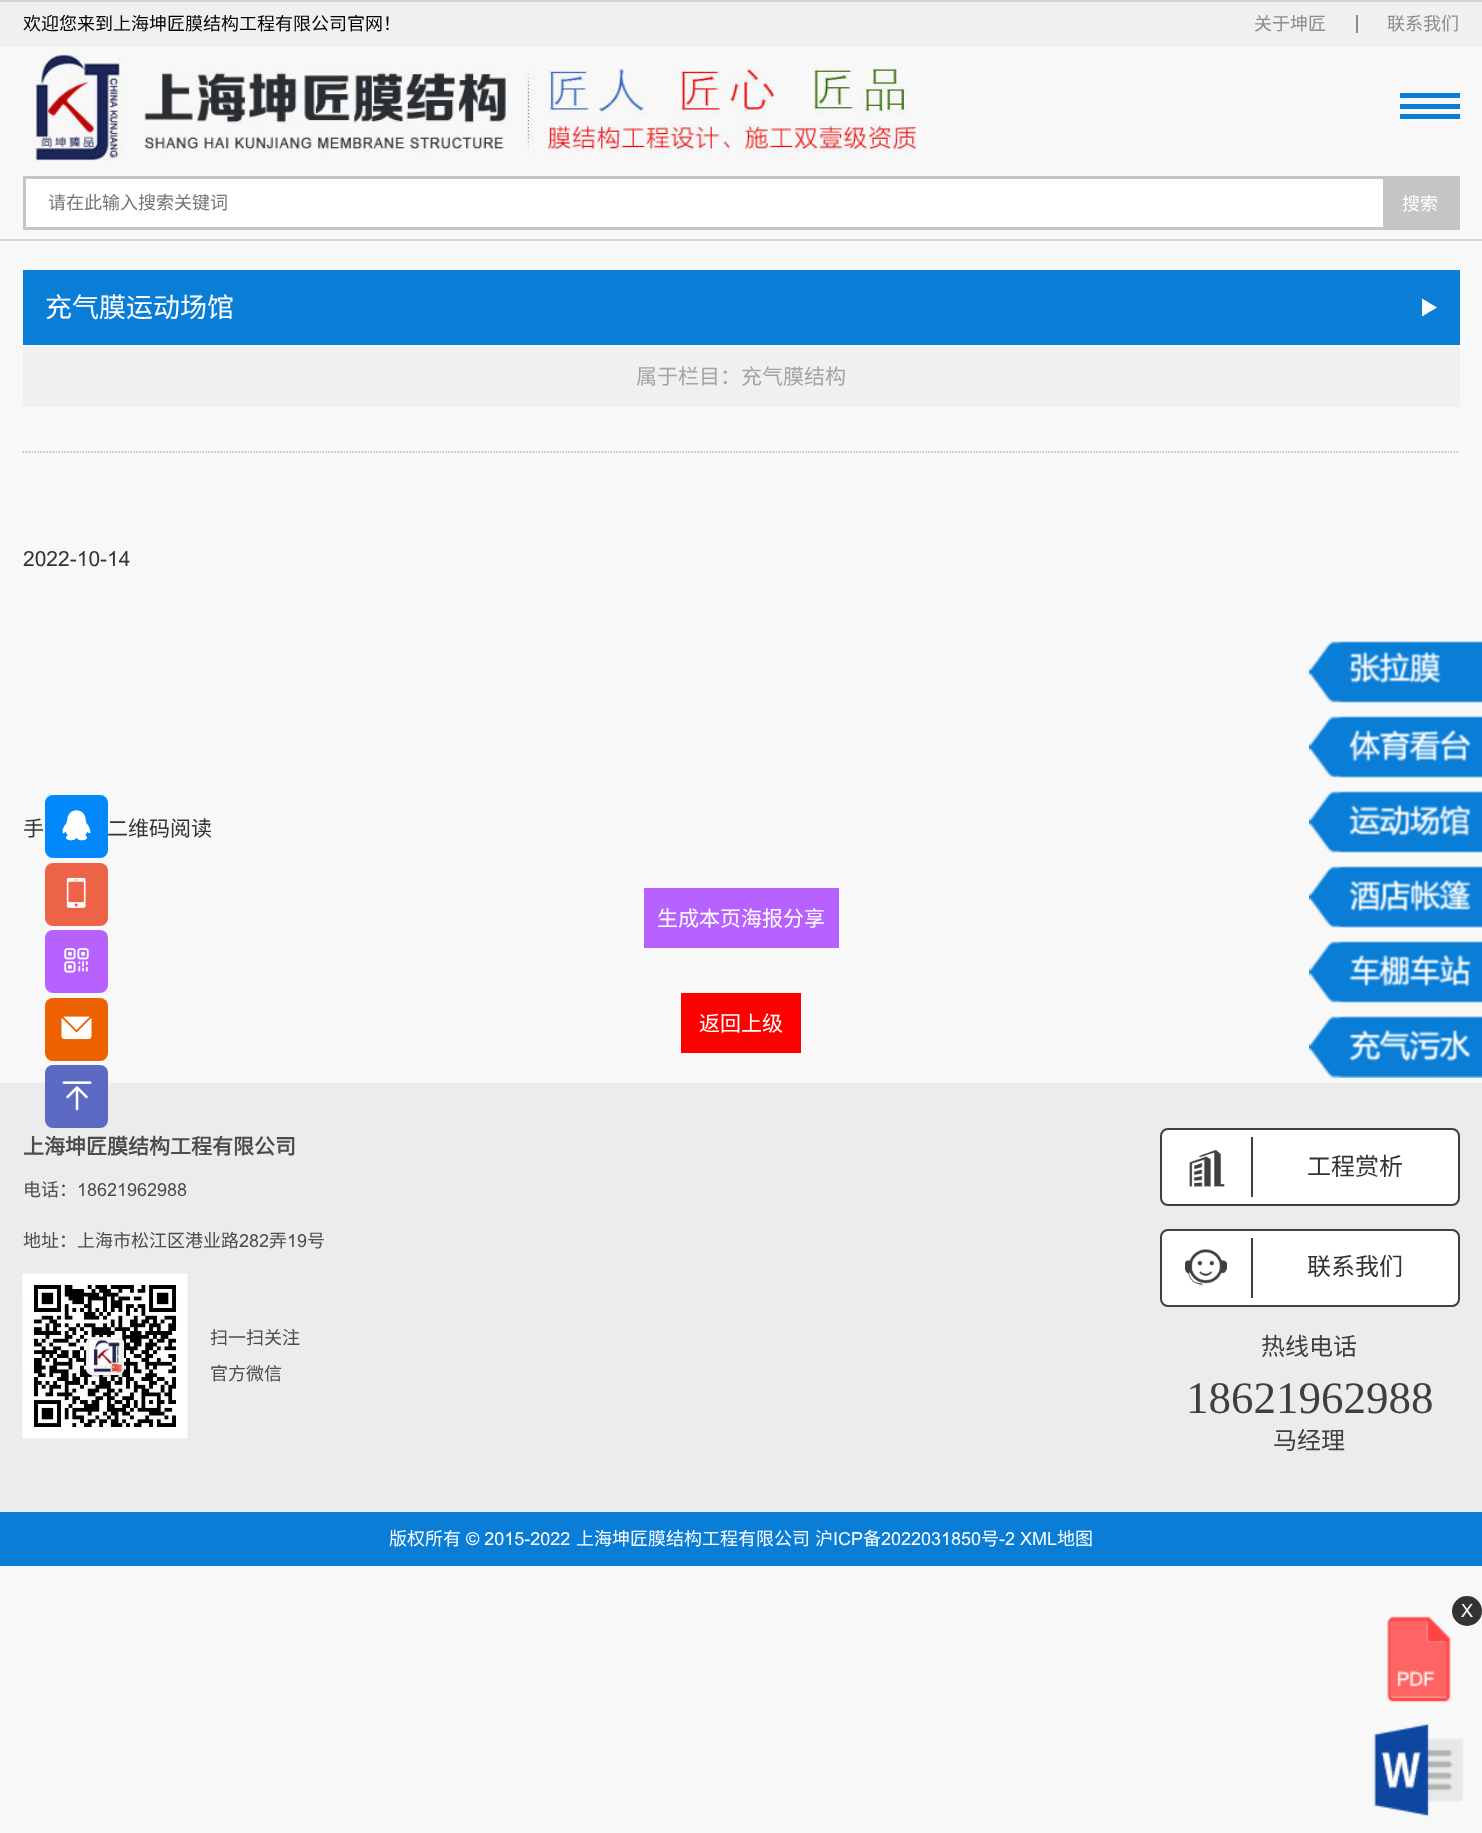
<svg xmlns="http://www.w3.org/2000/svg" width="1482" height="1833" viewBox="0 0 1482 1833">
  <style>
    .t1 { font: 18px Noto Sans CJK SC; fill: #000; }
    .t2 { font: 18px Noto Sans CJK SC; fill: #8b8b8b; }
    .t3 { font: 18px Noto Sans CJK SC; fill: #757575; }
    .t4 { font: 18px Noto Sans CJK SC; fill: #fff; }
    .t5 { font: 27px Noto Sans CJK SC; fill: #fff; }
    .t6 { font: 21px Noto Sans CJK SC; fill: #a4a4a4; }
    .t7 { font: 21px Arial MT; fill: #333; }
    .t8 { font: 21px Noto Sans CJK SC; fill: #333; }
    .t9 { font: 21px Noto Sans CJK SC; fill: #fff; }
    .t10 { font: bold 21px Noto Sans CJK SC; fill: #4c4c4c; }
    .t11 { font: 18px Noto Sans CJK SC; fill: #4c4c4c; }
    .t12 { font: 18px Arial MT; fill: #4c4c4c; }
    .t13 { font: 24px Noto Sans CJK SC; fill: #333; }
    .t14 { font: 24px Noto Sans CJK SC; fill: #3f3f3f; }
    .t15 { font: 45px Liberation Serif; fill: #3f3f3f; }
    .t16 { font: 18px Arial MT; fill: #fff; }
  </style>
  <rect width="100%" height="100%" fill="#f8f8f8"/>
  <rect x="0" y="2" width="1482" height="45" fill="#f0f0f0"/>
  <rect x="0" y="0" width="1482" height="2" fill="#d5d5d5"/>
  <text x="23" y="30" class="t1">欢迎您来到上海坤匠膜结构工程有限公司官网！</text>
  <text x="1254" y="30" class="t2">关于坤匠</text>
  <rect x="1356" y="15" width="2" height="18" fill="#8b8b8b"/>
  <text x="1387" y="30" class="t2">联系我们</text>
  <image x="32" y="49" width="885" height="114" href="images/1.png"/>
  <rect x="1400" y="93" width="60" height="5" fill="#0a7ed7"/>
  <rect x="1400" y="104" width="60" height="5" fill="#0a7ed7"/>
  <rect x="1400" y="114" width="60" height="5" fill="#0a7ed7"/>
  <rect x="0" y="239" width="1482" height="2" fill="#d5d5d5"/>
  <rect x="24.5" y="177.5" width="1434" height="51" fill="none" stroke="#c5c5c5" stroke-width="3"/>
  <rect x="26" y="179" width="1357" height="48" fill="#fff"/>
  <text x="48" y="209" class="t3">请在此输入搜索关键词</text>
  <rect x="1383" y="179" width="74" height="48" fill="#c5c5c5"/>
  <text x="1402" y="210" class="t4">搜索</text>
  <rect x="23" y="270" width="1437" height="75" fill="#0a7ed7"/>
  <text x="45" y="317" class="t5">充气膜运动场馆</text>
  <path d="M1422 316.5V298.5L1437 307.5Z" fill="#fff"/>
  <rect x="23" y="347" width="1437" height="60" fill="#f0f0f0"/>
  <text x="636" y="384" class="t6">属于栏目：充气膜结构</text>
  <path d="M22.5 452H1459.5" fill="none" stroke="#b4b4b4" stroke-width="1.5" stroke-dasharray="1.5 1.5"/>
  <text x="23" y="566" class="t7">2022-10-14</text>
  <text x="23" y="836" class="t8">手</text>
  <text x="107" y="836" class="t8">二维码阅读</text>
  <rect x="644" y="888" width="195" height="60" fill="#b762ff"/>
  <text x="657" y="926" class="t9">生成本页海报分享</text>
  <rect x="681" y="993" width="120" height="60" fill="#f00"/>
  <text x="699" y="1031" class="t9">返回上级</text>
  <image x="1309" y="641" width="173" height="62" href="images/2.png"/>
  <image x="1309" y="716" width="173" height="62" href="images/3.png"/>
  <image x="1309" y="791" width="173" height="62" href="images/4.png"/>
  <image x="1309" y="866" width="173" height="62" href="images/5.png"/>
  <image x="1309" y="941" width="173" height="62" href="images/6.png"/>
  <image x="1309" y="1016" width="173" height="62" href="images/7.png"/>
  <rect x="45" y="795" width="63" height="63" rx="8" fill="#0188fb"/>
  <image x="62" y="810" width="29" height="31" href="images/8.png"/>
  <rect x="45" y="863" width="63" height="63" rx="8" fill="#ed6347"/>
  <image x="66" y="877" width="20" height="31" href="images/9.png"/>
  <rect x="45" y="930" width="63" height="63" rx="8" fill="#b762ff"/>
  <image x="64" y="948" width="25" height="25" href="images/10.png"/>
  <rect x="45" y="998" width="63" height="63" rx="8" fill="#ee6100"/>
  <image x="61" y="1016" width="31" height="24" href="images/11.png"/>
  <rect x="0" y="1083" width="1482" height="429" fill="#ececec"/>
  <rect x="45" y="1065" width="63" height="63" rx="8" fill="#5c6ac4"/>
  <image x="62" y="1081" width="30" height="30" href="images/12.png"/>
  <text x="23" y="1154" class="t10">上海坤匠膜结构工程有限公司</text>
  <text x="23" y="1196" class="t11">电话：</text>
  <text x="77" y="1196" class="t12">18621962988</text>
  <text x="23" y="1247" class="t11">地址：上海市松江区港业路</text>
  <text x="239" y="1247" class="t12">282</text>
  <text x="269" y="1247" class="t11">弄</text>
  <text x="287" y="1247" class="t12">19</text>
  <text x="307" y="1247" class="t11">号</text>
  <image x="22" y="1273" width="166" height="166" href="images/13.png"/>
  <text x="210" y="1344" class="t11">扫一扫关注</text>
  <text x="210" y="1380" class="t11">官方微信</text>
  <rect x="1161" y="1129" width="298" height="76" rx="7" fill="#fff" stroke="#3f3f3f" stroke-width="2"/>
  <image x="1189" y="1149" width="36" height="38" href="images/14.png"/>
  <rect x="1251" y="1137" width="2" height="60" fill="#3f3f3f"/>
  <text x="1307" y="1175" class="t13">工程赏析</text>
  <rect x="1161" y="1230" width="298" height="76" rx="7" fill="#fff" stroke="#3f3f3f" stroke-width="2"/>
  <image x="1185" y="1249" width="42" height="37" href="images/15.png"/>
  <rect x="1251" y="1238" width="2" height="60" fill="#3f3f3f"/>
  <text x="1307" y="1275" class="t13">联系我们</text>
  <text x="1261" y="1355" class="t14">热线电话</text>
  <text x="1186" y="1413" class="t15">18621962988</text>
  <text x="1273" y="1449" class="t14">马经理</text>
  <rect x="0" y="1512" width="1482" height="54" fill="#0a7ed7"/>
  <text x="389" y="1545" class="t4">版权所有</text>
  <text x="466" y="1545" class="t16">© 2015-2022</text>
  <text x="576" y="1545" class="t4">上海坤匠膜结构工程有限公司</text>
  <text x="815" y="1545" class="t4">沪</text>
  <text x="833" y="1545" class="t16">ICP</text>
  <text x="863" y="1545" class="t4">备</text>
  <text x="881" y="1545" class="t16">2022031850</text>
  <text x="981" y="1545" class="t4">号</text>
  <text x="999" y="1545" class="t16">-2 XML</text>
  <text x="1057" y="1545" class="t4">地图</text>
  <circle cx="1467" cy="1611" r="15" fill="#333"/>
  <text x="1461" y="1617" class="t16">X</text>
  <image x="1387" y="1616" width="64" height="87" href="images/16.png"/>
  <image x="1373" y="1723" width="91" height="94" href="images/17.png"/>
</svg>
